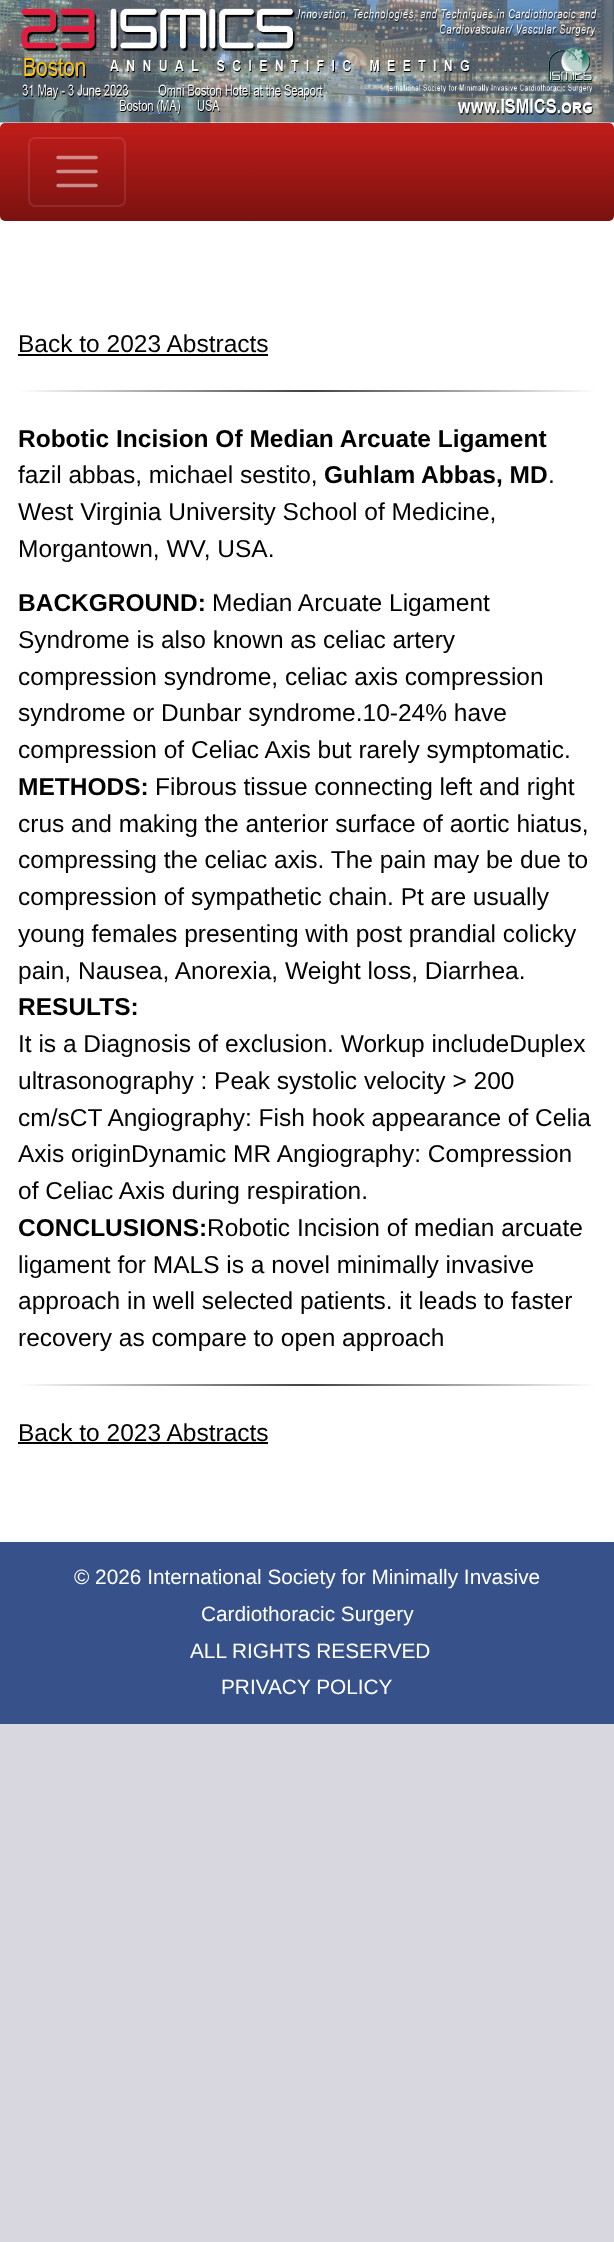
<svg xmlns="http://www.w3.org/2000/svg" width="614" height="2242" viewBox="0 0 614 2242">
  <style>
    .t1 { font: 24.5px Liberation Sans; fill: #000; }
    .t2 { font: bold 24.5px Liberation Sans; fill: #000; }
    .t3 { font: 20.8px Liberation Sans; fill: #fff; }
  </style>
  <defs>
    <linearGradient id="g1" gradientUnits="userSpaceOnUse" x1="307" y1="122" x2="307" y2="221"><stop offset="0" stop-color="#c21d1a"/><stop offset="1" stop-color="#7a1210"/></linearGradient>
    <linearGradient id="g2" gradientUnits="userSpaceOnUse" x1="18" y1="391" x2="597" y2="391"><stop offset="0" stop-color="#fff"/><stop offset="0.5" stop-color="#404040"/><stop offset="1" stop-color="#fff"/></linearGradient>
    <linearGradient id="g3" gradientUnits="userSpaceOnUse" x1="18" y1="1385" x2="597" y2="1385"><stop offset="0" stop-color="#fff"/><stop offset="0.5" stop-color="#404040"/><stop offset="1" stop-color="#fff"/></linearGradient>
  </defs>
  <rect width="100%" height="100%" fill="#d8d7df"/>
  <rect x="0" y="122" width="614" height="1420" fill="#fff"/>
  <image x="0" y="0" width="614" height="123" href="images/1.png"/>
  <rect x="0" y="123" width="614" height="98" rx="5" fill="url(#g1)"/>
  <rect x="29" y="138" width="96" height="68" rx="6" fill="none" stroke="#ffffff1a" stroke-width="2"/>
  <path d="M58 157.5H96M58 171.5H96M58 185.5H96" fill="none" stroke="#ffffff80" stroke-width="3.5" stroke-linecap="round"/>
  <text x="18" y="352" class="t1">Back to 2023 Abstracts</text>
  <rect x="18" y="354" width="250" height="2" fill="#000"/>
  <rect x="18" y="390" width="579" height="2" fill="url(#g2)"/>
  <text x="18" y="447" class="t2">Robotic Incision Of Median Arcuate Ligament</text>
  <text x="18" y="483" class="t1">fazil abbas, michael sestito,</text>
  <text x="324" y="483" class="t2">Guhlam Abbas, MD</text>
  <text x="548" y="483" class="t1">.</text>
  <text x="18" y="520" class="t1">West Virginia University School of Medicine,</text>
  <text x="18" y="557" class="t1">Morgantown, WV, USA.</text>
  <text x="18" y="611" class="t2">BACKGROUND:</text>
  <text x="212" y="611" class="t1">Median Arcuate Ligament</text>
  <text x="18" y="648" class="t1">Syndrome is also known as celiac artery</text>
  <text x="18" y="685" class="t1">compression syndrome, celiac axis compression</text>
  <text x="18" y="721" class="t1">syndrome or Dunbar syndrome.10-24% have</text>
  <text x="18" y="758" class="t1">compression of Celiac Axis but rarely symptomatic.</text>
  <text x="18" y="795" class="t2">METHODS:</text>
  <text x="155" y="795" class="t1">Fibrous tissue connecting left and right</text>
  <text x="18" y="832" class="t1">crus and making the anterior surface of aortic hiatus,</text>
  <text x="18" y="868" class="t1">compressing the celiac axis. The pain may be due to</text>
  <text x="18" y="905" class="t1">compression of sympathetic chain. Pt are usually</text>
  <text x="18" y="942" class="t1">young females presenting with post prandial colicky</text>
  <text x="18" y="979" class="t1">pain, Nausea, Anorexia, Weight loss, Diarrhea.</text>
  <text x="18" y="1015" class="t2">RESULTS:</text>
  <text x="18" y="1052" class="t1">It is a Diagnosis of exclusion. Workup includeDuplex</text>
  <text x="18" y="1089" class="t1">ultrasonography : Peak systolic velocity &gt; 200</text>
  <text x="18" y="1126" class="t1">cm/sCT Angiography: Fish hook appearance of Celia</text>
  <text x="18" y="1162" class="t1">Axis originDynamic MR Angiography: Compression</text>
  <text x="18" y="1199" class="t1">of Celiac Axis during respiration.</text>
  <text x="18" y="1236" class="t2">CONCLUSIONS:</text>
  <text x="207" y="1236" class="t1">Robotic Incision of median arcuate</text>
  <text x="18" y="1273" class="t1">ligament for MALS is a novel minimally invasive</text>
  <text x="18" y="1309" class="t1">approach in well selected patients. it leads to faster</text>
  <text x="18" y="1346" class="t1">recovery as compare to open approach</text>
  <rect x="18" y="1384" width="579" height="2" fill="url(#g3)"/>
  <text x="18" y="1441" class="t1">Back to 2023 Abstracts</text>
  <rect x="18" y="1442" width="250" height="2" fill="#000"/>
  <rect x="0" y="1542" width="614" height="182" fill="#37528a"/>
  <text x="74" y="1584" class="t3">© 2026 International Society for Minimally Invasive</text>
  <text x="201" y="1621" class="t3">Cardiothoracic Surgery</text>
  <text x="190" y="1658" class="t3">ALL RIGHTS RESERVED</text>
  <text x="221" y="1694" class="t3">PRIVACY POLICY</text>
</svg>
